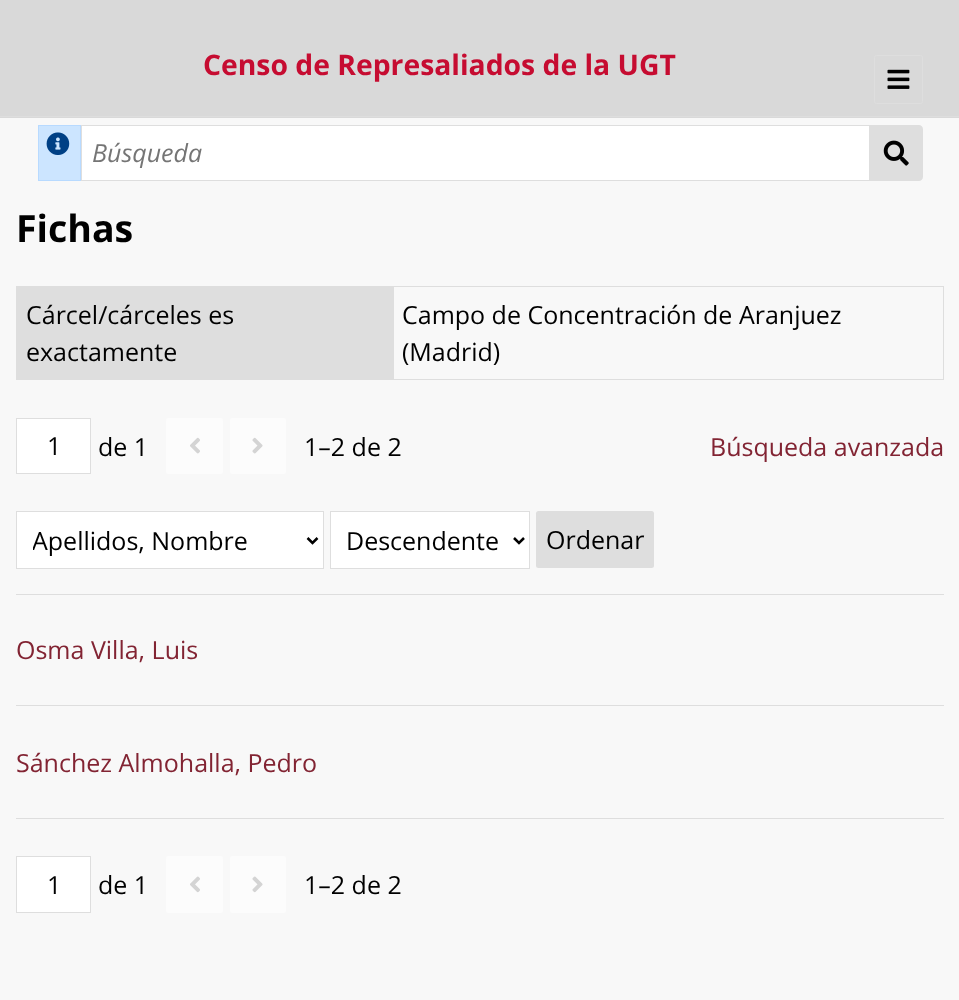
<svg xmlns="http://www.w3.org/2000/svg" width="959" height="1000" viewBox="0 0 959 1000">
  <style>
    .t1 { font: bold 28.3px Open Sans; fill: #c60c31; }
    .t2 { font: italic 25px Open Sans; fill: #757575; }
    .t3 { font: bold 37.5px Open Sans; fill: #000; }
    .t4 { font: 25px Open Sans; fill: #000; }
    .t5 { font: 25px Open Sans; fill: #822433; }
  </style>
  <defs>
    <clipPath id="clip1"><rect x="33" y="523" width="261" height="36"/></clipPath>
  </defs>
  <rect width="100%" height="100%" fill="#f8f8f8"/>
  <rect x="0" y="0" width="959" height="118" fill="#d9d9d9"/>
  <rect x="0" y="116" width="959" height="1" fill="#dedede"/>
  <text x="203" y="75" class="t1">Censo de Represaliados de la UGT</text>
  <rect x="874.5" y="55.5" width="48" height="48" rx="2" fill="none" stroke="#dedede"/>
  <image x="887" y="69" width="23" height="20" href="images/1.png"/>
  <rect x="38.5" y="125.5" width="42" height="55" fill="#cce5ff" stroke="#b8daff"/>
  <image x="46" y="132" width="24" height="23" href="images/2.png"/>
  <rect x="81.5" y="125.5" width="788" height="55" fill="#fff" stroke="#dedede"/>
  <text x="92" y="162" class="t2">Búsqueda</text>
  <path d="M870 125H919C921 125 923 127 923 129V177C923 179 921 181 919 181H870Z" fill="#dedede"/>
  <image x="883" y="140" width="26" height="26" href="images/3.png"/>
  <text x="16" y="242" class="t3">Fichas</text>
  <rect x="16" y="286" width="377" height="94" fill="#dedede"/>
  <text x="26" y="324" class="t4">Cárcel/cárceles es</text>
  <text x="26" y="361" class="t4">exactamente</text>
  <rect x="393.5" y="286.5" width="550" height="93" fill="none" stroke="#dedede"/>
  <text x="402" y="324" class="t4">Campo de Concentración de Aranjuez</text>
  <text x="402" y="361" class="t4">(Madrid)</text>
  <rect x="16.5" y="418.5" width="74" height="55" fill="#fff" stroke="#dedede"/>
  <text x="47" y="455" class="t4">1</text>
  <text x="98" y="456" class="t4">de 1</text>
  <rect x="166" y="418" width="57" height="56" rx="2.5" fill="#fcfcfc"/>
  <image x="190" y="437" width="10" height="17" href="images/4.png"/>
  <rect x="230" y="418" width="56" height="56" rx="2.5" fill="#fcfcfc"/>
  <image x="252" y="437" width="11" height="17" href="images/5.png"/>
  <text x="304" y="456" class="t4">1–2 de 2</text>
  <text x="710" y="456" class="t5">Búsqueda avanzada</text>
  <rect x="16.5" y="511.5" width="307" height="57" fill="#fff" stroke="#dedede"/>
  <path d="M307.5 538L312.5 543L317.5 538" fill="none" stroke="#000" stroke-width="2.5"/>
  <g clip-path="url(#clip1)">
    <text x="32" y="550" class="t4">Apellidos, Nombre</text>
  </g>
  <rect x="330.5" y="511.5" width="199" height="57" fill="#fff" stroke="#dedede"/>
  <path d="M514 538L519 543L524 538" fill="none" stroke="#000" stroke-width="2.5"/>
  <text x="346" y="550" class="t4">Descendente</text>
  <rect x="536" y="511" width="118" height="57" rx="2.5" fill="#dedede"/>
  <text x="546" y="549" class="t4">Ordenar</text>
  <rect x="16" y="594" width="928" height="1" fill="#dedede"/>
  <rect x="16" y="705" width="928" height="1" fill="#dedede"/>
  <text x="16" y="659" class="t5">Osma Villa, Luis</text>
  <rect x="16" y="818" width="928" height="1" fill="#dedede"/>
  <text x="16" y="772" class="t5">Sánchez Almohalla, Pedro</text>
  <rect x="16.5" y="856.5" width="74" height="56" fill="#fff" stroke="#dedede"/>
  <text x="47" y="894" class="t4">1</text>
  <text x="98" y="894" class="t4">de 1</text>
  <rect x="166" y="856" width="57" height="57" rx="2.5" fill="#fcfcfc"/>
  <image x="190" y="876" width="10" height="17" href="images/6.png"/>
  <rect x="230" y="856" width="56" height="57" rx="2.5" fill="#fcfcfc"/>
  <image x="252" y="876" width="11" height="17" href="images/7.png"/>
  <text x="304" y="894" class="t4">1–2 de 2</text>
</svg>
